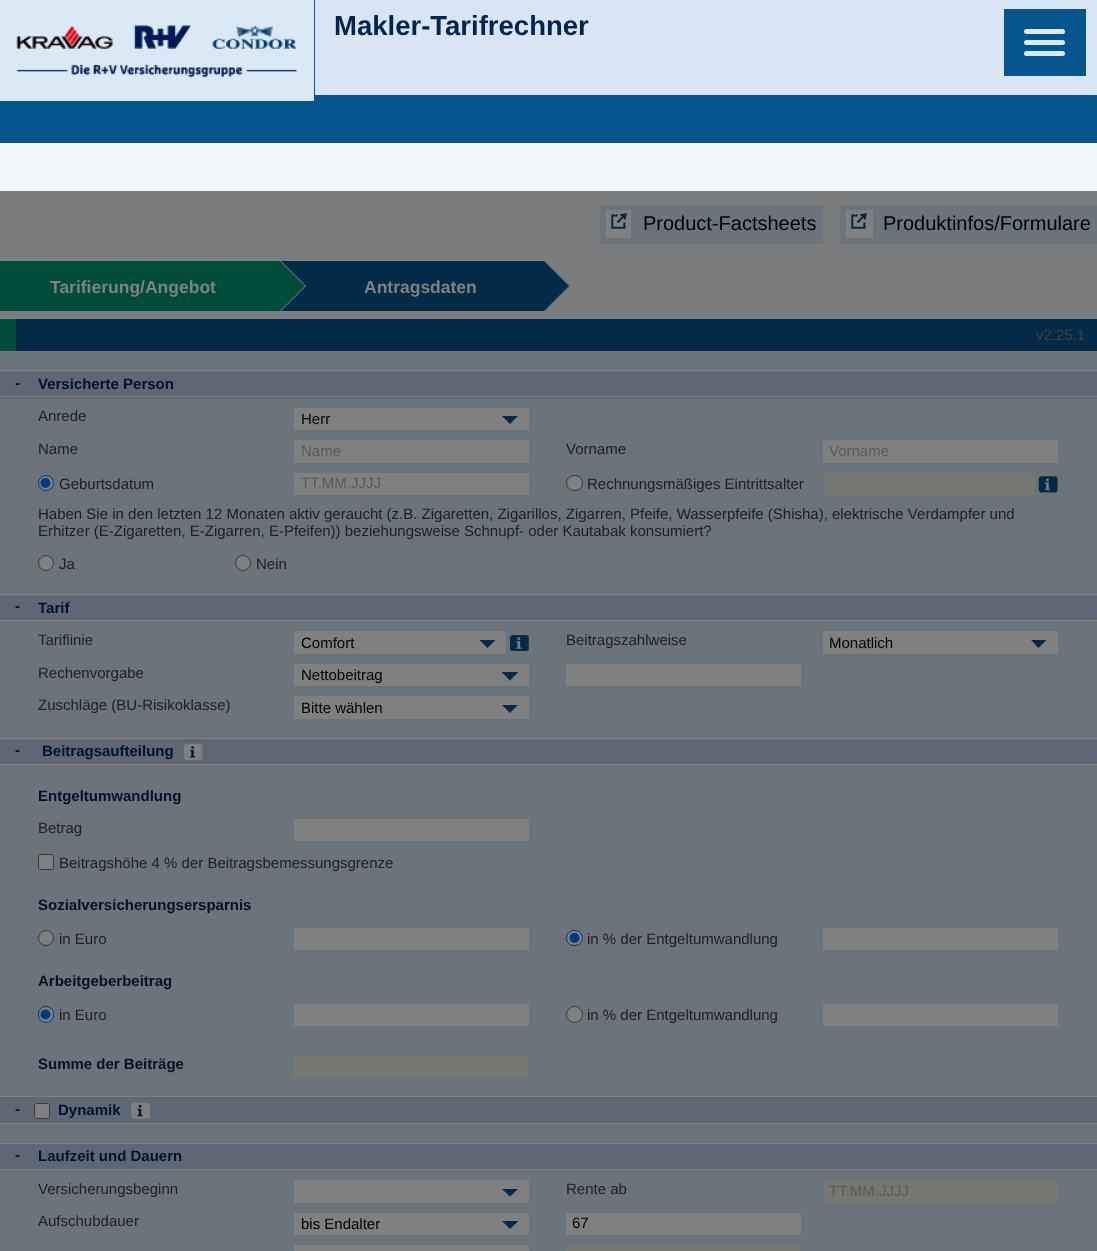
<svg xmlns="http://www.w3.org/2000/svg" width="1097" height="1251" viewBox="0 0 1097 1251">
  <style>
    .t1 { font: bold 27.5px Liberation Sans; fill: #00254f; }
    .t2 { font: 20px Liberation Sans; fill: #000; }
    .t3 { font: bold 17.5px Liberation Sans; fill: #808080; }
    .t4 { font: 15px Liberation Sans; fill: #404040; }
    .t5 { font: bold 15px Liberation Sans; fill: #001328; }
    .t6 { font: 15px Liberation Sans; fill: #202021; }
    .t7 { font: 15px Liberation Sans; fill: #000; }
    .t8 { font: 15px Liberation Sans; fill: #5a5a5a; }
  </style>
  <defs>
    <linearGradient id="g1" gradientUnits="userSpaceOnUse" x1="510" y1="408" x2="510" y2="424"><stop offset="0" stop-color="#808080"/><stop offset="0.49" stop-color="#808080"/><stop offset="0.5" stop-color="#032b47"/><stop offset="1" stop-color="#032b47"/></linearGradient>
    <linearGradient id="g2" gradientUnits="userSpaceOnUse" x1="488" y1="632" x2="488" y2="648"><stop offset="0" stop-color="#808080"/><stop offset="0.49" stop-color="#808080"/><stop offset="0.5" stop-color="#032b47"/><stop offset="1" stop-color="#032b47"/></linearGradient>
    <linearGradient id="g3" gradientUnits="userSpaceOnUse" x1="1039" y1="632" x2="1039" y2="648"><stop offset="0" stop-color="#808080"/><stop offset="0.49" stop-color="#808080"/><stop offset="0.5" stop-color="#032b47"/><stop offset="1" stop-color="#032b47"/></linearGradient>
    <linearGradient id="g4" gradientUnits="userSpaceOnUse" x1="510" y1="665" x2="510" y2="680"><stop offset="0" stop-color="#808080"/><stop offset="0.49" stop-color="#808080"/><stop offset="0.5" stop-color="#032b47"/><stop offset="1" stop-color="#032b47"/></linearGradient>
    <linearGradient id="g5" gradientUnits="userSpaceOnUse" x1="510" y1="697" x2="510" y2="713"><stop offset="0" stop-color="#808080"/><stop offset="0.49" stop-color="#808080"/><stop offset="0.5" stop-color="#032b47"/><stop offset="1" stop-color="#032b47"/></linearGradient>
    <linearGradient id="g6" gradientUnits="userSpaceOnUse" x1="510" y1="1181" x2="510" y2="1197"><stop offset="0" stop-color="#808080"/><stop offset="0.49" stop-color="#808080"/><stop offset="0.5" stop-color="#032b47"/><stop offset="1" stop-color="#032b47"/></linearGradient>
    <linearGradient id="g7" gradientUnits="userSpaceOnUse" x1="510" y1="1213" x2="510" y2="1229"><stop offset="0" stop-color="#808080"/><stop offset="0.49" stop-color="#808080"/><stop offset="0.5" stop-color="#032b47"/><stop offset="1" stop-color="#032b47"/></linearGradient>
  </defs>
  <rect width="100%" height="100%" fill="#f4f7fa"/>
  <rect x="0" y="0" width="1097" height="143" fill="#06558d"/>
  <rect x="315" y="0" width="782" height="95" fill="#d9e5f5"/>
  <rect x="1004" y="9" width="82" height="67" fill="#06558d"/>
  <rect x="1024" y="29" width="41" height="5" rx="2.5" fill="#d9e9f6"/>
  <rect x="1024" y="40" width="41" height="5" rx="2.5" fill="#d9e9f6"/>
  <rect x="1024" y="51" width="41" height="5" rx="2.5" fill="#d9e9f6"/>
  <rect x="0" y="0" width="314" height="101" fill="#d9e9f6"/>
  <image x="16" y="25" width="282" height="53" href="images/1.png"/>
  <text x="334" y="35" class="t1">Makler-Tarifrechner</text>
  <rect x="0" y="191" width="1097" height="127" fill="#7a7c7d"/>
  <rect x="600" y="205" width="223" height="39" fill="#6d737b"/>
  <rect x="606" y="210" width="25" height="28" fill="#808080"/>
  <image x="611" y="213" width="16" height="16" href="images/2.png"/>
  <text x="643" y="230" class="t2">Product-Factsheets</text>
  <rect x="840" y="205" width="257" height="39" fill="#6d737b"/>
  <rect x="846" y="210" width="27" height="28" fill="#808080"/>
  <image x="851" y="213" width="16" height="16" href="images/2.png"/>
  <text x="883" y="230" class="t2">Produktinfos/Formulare</text>
  <rect x="0" y="351" width="1097" height="900" fill="#6d737b"/>
  <rect x="0" y="261" width="230" height="50" fill="#004c3b"/>
  <text x="50" y="293" class="t3">Tarifierung/Angebot</text>
  <rect x="281" y="261" width="213" height="50" fill="#032b47"/>
  <path d="M205 261H281L306 286H230Z" fill="#004c3b"/>
  <path d="M280 261H281L306 286H305Z" fill="#808080"/>
  <path d="M230 286H306L281 311H205Z" fill="#004c3b"/>
  <path d="M305 286H306L281 311H280Z" fill="#808080"/>
  <text x="364" y="293" class="t3">Antragsdaten</text>
  <path d="M469 261H545L570 286H494Z" fill="#032b47"/>
  <path d="M544 261H545L570 286H569Z" fill="#808080"/>
  <path d="M494 286H570L545 311H469Z" fill="#032b47"/>
  <path d="M569 286H570L545 311H544Z" fill="#808080"/>
  <rect x="0" y="319" width="16" height="32" fill="#004c3b"/>
  <rect x="16" y="319" width="1081" height="32" fill="#032b47"/>
  <rect x="0" y="318" width="1097" height="1" fill="#808080"/>
  <text x="1036" y="340" class="t4">v2.25.1</text>
  <rect x="0" y="371" width="1097" height="27" fill="#5d6775"/>
  <rect x="0" y="370" width="1097" height="1" fill="#808080"/>
  <rect x="0" y="396" width="1097" height="1" fill="#808080"/>
  <text x="15" y="388" class="t5">-</text>
  <text x="38" y="389" class="t5">Versicherte Person</text>
  <text x="38" y="421" class="t6">Anrede</text>
  <rect x="294" y="408" width="235" height="22" fill="#808080"/>
  <text x="301" y="424" class="t7">Herr</text>
  <path d="M510 424L502 416L510 408.5L518 416Z" fill="url(#g1)"/>
  <text x="38" y="454" class="t6">Name</text>
  <rect x="294" y="440" width="235" height="23" fill="#808080"/>
  <text x="301" y="456" class="t8">Name</text>
  <text x="566" y="454" class="t6">Vorname</text>
  <rect x="823" y="440" width="235" height="23" fill="#808080"/>
  <text x="829" y="456" class="t8">Vorname</text>
  <circle cx="46" cy="483" r="7.5" fill="#808080" stroke="#003b80"/>
  <circle cx="45.5" cy="483" r="5" fill="#003b80"/>
  <text x="59" y="489" class="t6">Geburtsdatum</text>
  <rect x="294" y="473" width="235" height="22" fill="#808080"/>
  <text x="301" y="488" class="t8">TT.MM.JJJJ</text>
  <rect x="566.5" y="475.5" width="16" height="15" rx="7.5" fill="#808080" stroke="#3b3b3b"/>
  <text x="587" y="489" class="t6">Rechnungsmäßiges Eintrittsalter</text>
  <rect x="823" y="473" width="212" height="22" fill="#767672"/>
  <image x="1038" y="476" width="20" height="17" href="images/3.png"/>
  <text x="38" y="519" class="t6">Haben Sie in den letzten 12 Monaten aktiv geraucht (z.B. Zigaretten, Zigarillos, Zigarren, Pfeife, Wasserpfeife (Shisha), elektrische Verdampfer und</text>
  <text x="38" y="536" class="t6">Erhitzer (E-Zigaretten, E-Zigarren, E-Pfeifen)) beziehungsweise Schnupf- oder Kautabak konsumiert?</text>
  <circle cx="46" cy="563" r="7.5" fill="#808080" stroke="#3b3b3b"/>
  <text x="59" y="569" class="t6">Ja</text>
  <circle cx="243" cy="563" r="7.5" fill="#808080" stroke="#3b3b3b"/>
  <text x="256" y="569" class="t6">Nein</text>
  <rect x="0" y="595" width="1097" height="25" fill="#5d6775"/>
  <rect x="0" y="594" width="1097" height="1" fill="#808080"/>
  <rect x="0" y="620" width="1097" height="1" fill="#808080"/>
  <text x="15" y="611" class="t5">-</text>
  <text x="38" y="613" class="t5">Tarif</text>
  <text x="38" y="645" class="t6">Tariflinie</text>
  <rect x="294" y="631" width="212" height="23" fill="#808080"/>
  <text x="301" y="648" class="t7">Comfort</text>
  <path d="M487.5 648L479.5 640L487.5 632L495.5 640Z" fill="url(#g2)"/>
  <image x="510" y="635" width="19" height="16" href="images/4.png"/>
  <text x="566" y="645" class="t6">Beitragszahlweise</text>
  <rect x="823" y="631" width="235" height="23" fill="#808080"/>
  <text x="829" y="648" class="t7">Monatlich</text>
  <path d="M1038.5 648L1031 640L1038.5 632L1046.5 640Z" fill="url(#g3)"/>
  <text x="38" y="678" class="t6">Rechenvorgabe</text>
  <rect x="294" y="664" width="235" height="22" fill="#808080"/>
  <text x="301" y="680" class="t7">Nettobeitrag</text>
  <path d="M510 680.5L502 672.5L510 664.5L518 672.5Z" fill="url(#g4)"/>
  <rect x="566" y="664" width="235" height="22" fill="#808080"/>
  <text x="38" y="710" class="t6">Zuschläge (BU-Risikoklasse)</text>
  <rect x="294" y="696" width="235" height="23" fill="#808080"/>
  <text x="301" y="713" class="t7">Bitte wählen</text>
  <path d="M510 713L502 705L510 697L518 705Z" fill="url(#g5)"/>
  <rect x="0" y="739" width="1097" height="25" fill="#5d6775"/>
  <rect x="0" y="738" width="1097" height="1" fill="#808080"/>
  <rect x="0" y="764" width="1097" height="1" fill="#808080"/>
  <text x="15" y="755" class="t5">-</text>
  <text x="42" y="756" class="t5">Beitragsaufteilung</text>
  <image x="183" y="743" width="20" height="17" href="images/5.png"/>
  <text x="38" y="801" class="t5">Entgeltumwandlung</text>
  <text x="38" y="833" class="t6">Betrag</text>
  <rect x="294" y="819" width="235" height="22" fill="#808080"/>
  <rect x="38.5" y="854.5" width="15" height="15" rx="2" fill="#808080" stroke="#3b3b3b"/>
  <text x="59" y="868" class="t6">Beitragshöhe 4 % der Beitragsbemessungsgrenze</text>
  <text x="38" y="910" class="t5">Sozialversicherungsersparnis</text>
  <circle cx="46" cy="938" r="7.5" fill="#808080" stroke="#3b3b3b"/>
  <text x="59" y="944" class="t6">in Euro</text>
  <rect x="294" y="928" width="235" height="22" fill="#808080"/>
  <rect x="566.5" y="930.5" width="16" height="15" rx="7.5" fill="#808080" stroke="#003b80"/>
  <circle cx="574.5" cy="938" r="5" fill="#003b80"/>
  <text x="587" y="944" class="t6">in % der Entgeltumwandlung</text>
  <rect x="823" y="928" width="235" height="22" fill="#808080"/>
  <text x="38" y="986" class="t5">Arbeitgeberbeitrag</text>
  <rect x="38.5" y="1006.5" width="15" height="16" rx="7.5" fill="#808080" stroke="#003b80"/>
  <circle cx="45.5" cy="1014.5" r="5" fill="#003b80"/>
  <text x="59" y="1020" class="t6">in Euro</text>
  <rect x="294" y="1004" width="235" height="22" fill="#808080"/>
  <circle cx="574.5" cy="1014.5" r="8" fill="#808080" stroke="#3b3b3b"/>
  <text x="587" y="1020" class="t6">in % der Entgeltumwandlung</text>
  <rect x="823" y="1004" width="235" height="22" fill="#808080"/>
  <text x="38" y="1069" class="t5">Summe der Beiträge</text>
  <rect x="294" y="1055" width="235" height="23" fill="#767672"/>
  <rect x="0" y="1097" width="1097" height="26" fill="#5d6775"/>
  <rect x="0" y="1096" width="1097" height="1" fill="#808080"/>
  <rect x="0" y="1123" width="1097" height="1" fill="#808080"/>
  <text x="15" y="1114" class="t5">-</text>
  <rect x="34.5" y="1103.5" width="15" height="15" rx="2" fill="#808080" stroke="#3b3b3b"/>
  <text x="58" y="1115" class="t5">Dynamik</text>
  <image x="131" y="1102" width="19" height="17" href="images/6.png"/>
  <rect x="0" y="1144" width="1097" height="25" fill="#5d6775"/>
  <rect x="0" y="1143" width="1097" height="1" fill="#808080"/>
  <rect x="0" y="1169" width="1097" height="1" fill="#808080"/>
  <text x="15" y="1160" class="t5">-</text>
  <text x="38" y="1161" class="t5">Laufzeit und Dauern</text>
  <text x="38" y="1194" class="t6">Versicherungsbeginn</text>
  <rect x="294" y="1180" width="235" height="23" fill="#808080"/>
  <path d="M510 1196.5L502 1189L510 1181L518 1189Z" fill="url(#g6)"/>
  <text x="566" y="1194" class="t6">Rente ab</text>
  <rect x="823" y="1180" width="235" height="23" fill="#767672"/>
  <text x="829" y="1196" class="t8">TT.MM.JJJJ</text>
  <text x="38" y="1226" class="t6">Aufschubdauer</text>
  <rect x="294" y="1213" width="235" height="22" fill="#808080"/>
  <text x="301" y="1229" class="t7">bis Endalter</text>
  <path d="M510 1229L502 1221L510 1213.5L518 1221.5Z" fill="url(#g7)"/>
  <rect x="566" y="1213" width="235" height="22" fill="#808080"/>
  <text x="572" y="1228" class="t7">67</text>
  <rect x="294" y="1245" width="235" height="6" fill="#808080"/>
  <rect x="566" y="1245" width="235" height="6" fill="#767672"/>
</svg>
